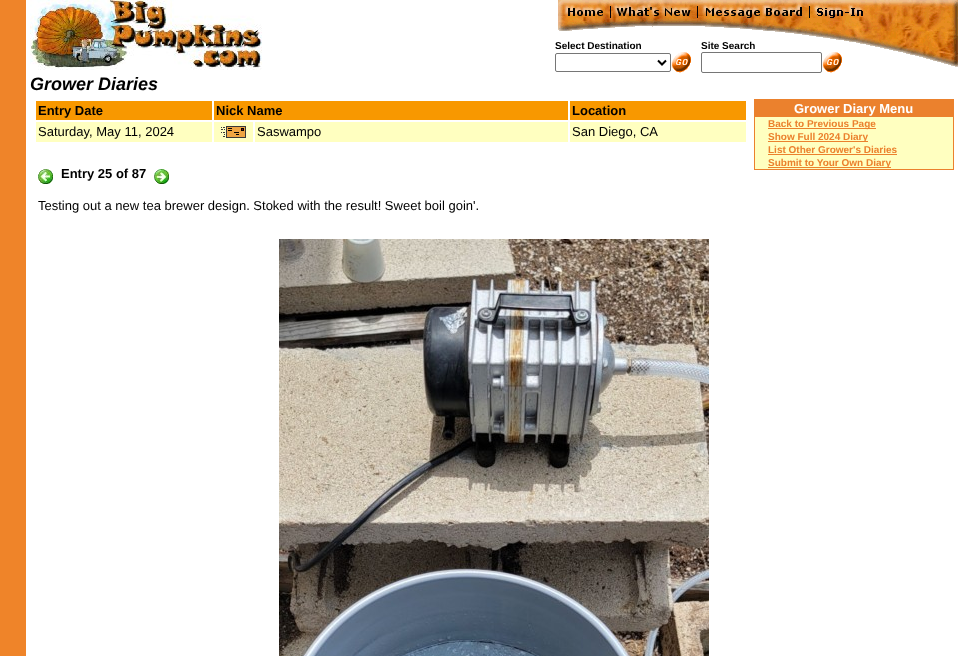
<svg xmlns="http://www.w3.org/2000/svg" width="958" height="656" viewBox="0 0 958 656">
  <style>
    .t1 { font: bold 10px Liberation Sans; fill: #000; }
    .t2 { font: italic bold 18px Liberation Sans; fill: #000; }
    .t3 { font: bold 13px Liberation Sans; fill: #000; }
    .t4 { font: 13px Liberation Sans; fill: #000; }
    .t5 { font: bold 13px Liberation Sans; fill: #fff; }
    .t6 { font: bold 10px Liberation Sans; fill: #eb812d; }
  </style>
  <rect width="100%" height="100%" fill="#fff"/>
  <rect x="0" y="0" width="26" height="656" fill="#ef8429"/>
  <image x="30" y="0" width="232" height="70" href="images/1.png"/>
  <image x="558" y="0" width="400" height="40" href="images/2.png"/>
  <text x="555" y="49" class="t1">Select Destination</text>
  <text x="701" y="49" class="t1">Site Search</text>
  <image x="844" y="40" width="114" height="27" href="images/3.png"/>
  <rect x="555.5" y="53.5" width="115" height="18" rx="1.5" fill="none" stroke="#767676"/>
  <path d="M658 60.5L662 64.5L666 60.5" fill="none" stroke="#000" stroke-width="2"/>
  <image x="671" y="52" width="20" height="21" href="images/4.png"/>
  <rect x="701.5" y="52.5" width="120" height="20" rx="1.5" fill="none" stroke="#767676"/>
  <image x="822" y="52" width="20" height="21" href="images/4.png"/>
  <text x="30" y="90" class="t2">Grower Diaries</text>
  <rect x="36" y="101" width="176" height="19" fill="#f89800"/>
  <text x="38" y="115" class="t3">Entry Date</text>
  <rect x="214" y="101" width="354" height="19" fill="#f89800"/>
  <text x="216" y="115" class="t3">Nick Name</text>
  <rect x="570" y="101" width="176" height="19" fill="#f89800"/>
  <text x="572" y="115" class="t3">Location</text>
  <rect x="36" y="122" width="176" height="20" fill="#ffffc0"/>
  <text x="38" y="136" class="t4">Saturday, May 11, 2024</text>
  <rect x="214" y="122" width="39" height="20" fill="#ffffc0"/>
  <image x="221" y="126" width="25" height="12" href="images/5.png"/>
  <rect x="255" y="122" width="313" height="20" fill="#ffffc0"/>
  <text x="257" y="136" class="t4">Saswampo</text>
  <rect x="570" y="122" width="176" height="20" fill="#ffffc0"/>
  <text x="572" y="136" class="t4">San Diego, CA</text>
  <image x="38" y="169" width="15" height="15" href="images/6.png"/>
  <text x="61" y="178" class="t3">Entry 25 of 87</text>
  <image x="154" y="169" width="15" height="15" href="images/7.png"/>
  <rect x="754" y="99" width="200" height="71" fill="#eb812d"/>
  <text x="794" y="113" class="t5">Grower Diary Menu</text>
  <rect x="755" y="117" width="12" height="52" fill="#ffffc0"/>
  <rect x="767" y="117" width="186" height="52" fill="#ffffc0"/>
  <rect x="768" y="128" width="108" height="1" fill="#eb812d"/>
  <text x="768" y="127" class="t6">Back to Previous Page</text>
  <rect x="768" y="141" width="100" height="1" fill="#eb812d"/>
  <text x="768" y="140" class="t6">Show Full 2024 Diary</text>
  <text x="768" y="153" class="t6">List Other Grower's Diaries</text>
  <rect x="768" y="154" width="129" height="1" fill="#eb812d"/>
  <rect x="768" y="167" width="123" height="1" fill="#eb812d"/>
  <text x="768" y="166" class="t6">Submit to Your Own Diary</text>
  <text x="38" y="210" class="t4">Testing out a new tea brewer design. Stoked with the result! Sweet boil goin'.</text>
  <image x="279" y="239" width="430" height="417" href="images/8.png"/>
</svg>
